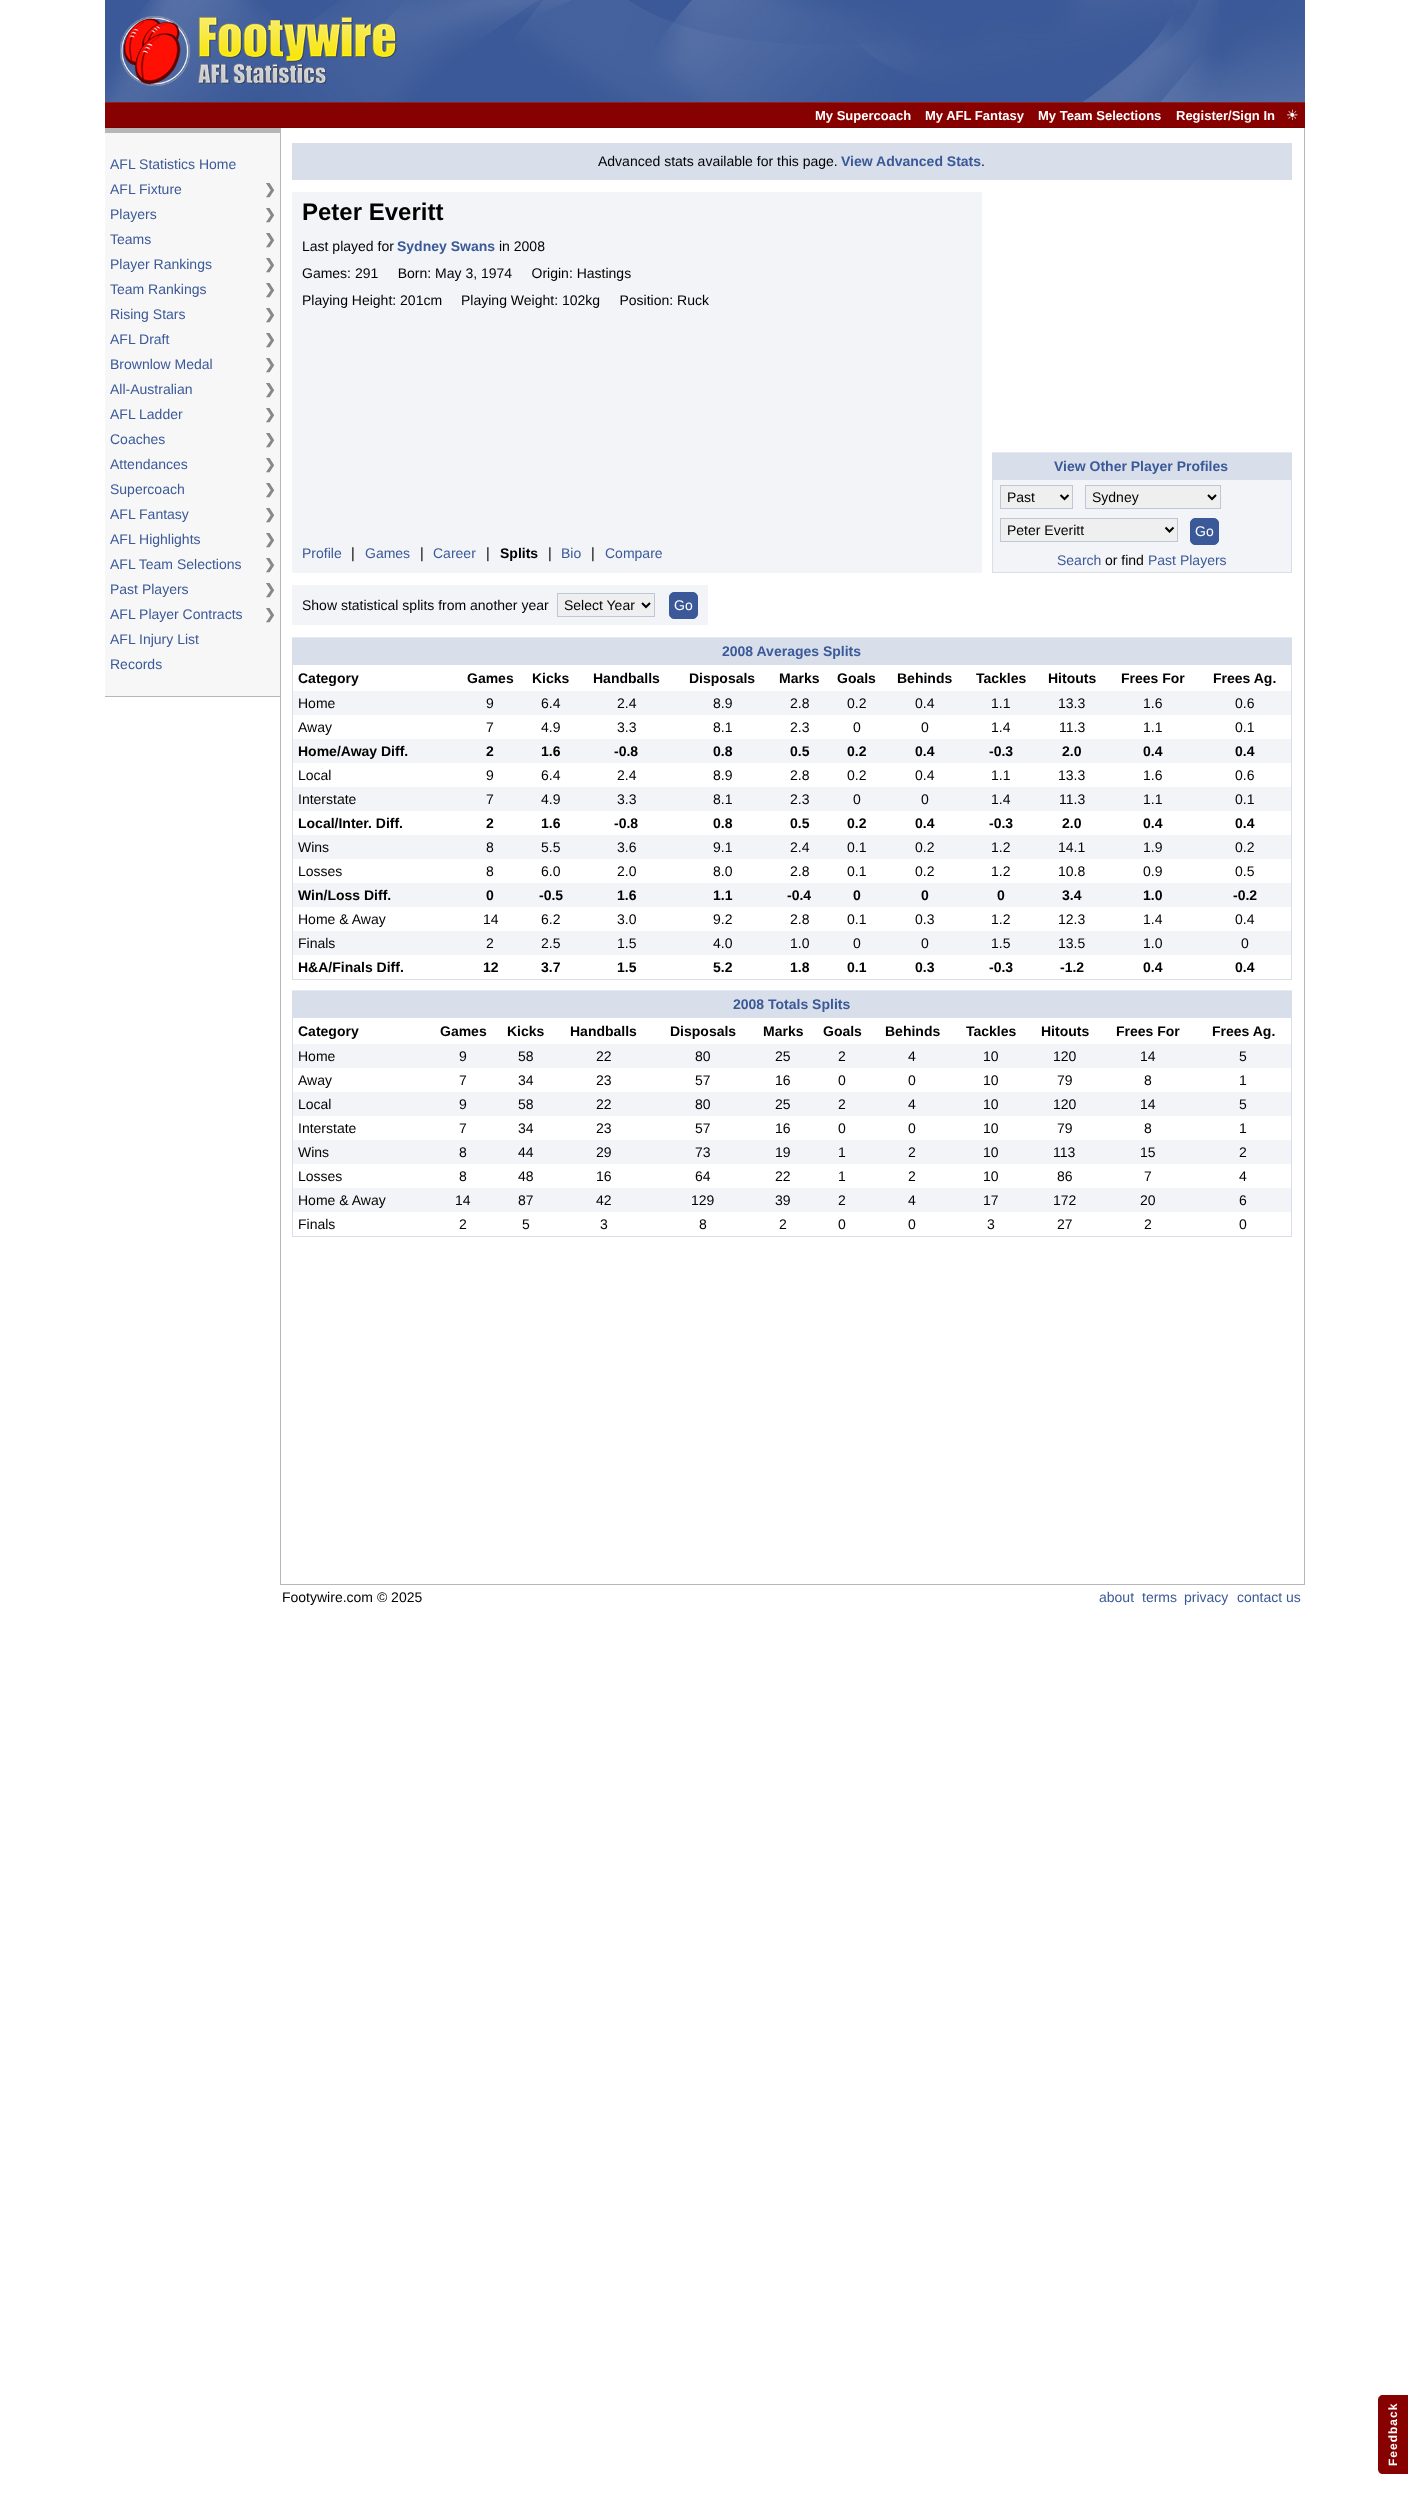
<svg xmlns="http://www.w3.org/2000/svg" width="1409" height="2494" viewBox="0 0 1409 2494">
  <style>
    .t1 { font: bold 13px Liberation Sans; fill: #fff; }
    .t2 { font: 14px DejaVu Sans; fill: #fff; }
    .t3 { font: 14px Liberation Sans; fill: #3b5998; }
    .t4 { font: bold 14px DejaVu Sans; fill: #888; }
    .t5 { font: 14px Liberation Sans; fill: #000; }
    .t6 { font: bold 14px Liberation Sans; fill: #3b5998; }
    .t7 { font: bold 24px Liberation Sans; fill: #000; }
    .t8 { font: 14px Liberation Sans; fill: #fff; }
    .t9 { font: 14px DejaVu Sans; fill: #000; }
    .t10 { font: bold 14px Liberation Sans; fill: #000; }
    .t11 { font: bold 12px Liberation Sans; letter-spacing: 1px; fill: #fff; }
  </style>
  <rect width="100%" height="100%" fill="#fff"/>
  <image x="105" y="0" width="1200" height="102" href="images/1.png"/>
  <rect x="105" y="103" width="1200" height="24" fill="#870101"/>
  <rect x="105" y="102" width="1200" height="1" fill="#92201e"/>
  <rect x="105" y="127" width="1200" height="1" fill="#760402"/>
  <text x="815" y="120" class="t1">My Supercoach</text>
  <text x="925" y="120" class="t1">My AFL Fantasy</text>
  <text x="1038" y="120" class="t1">My Team Selections</text>
  <text x="1176" y="120" class="t1">Register/Sign In</text>
  <text x="1286" y="120" class="t2">☀</text>
  <rect x="105" y="133" width="175" height="563" fill="#f7f7f7"/>
  <rect x="105" y="128" width="175" height="5" fill="#b7b7b7"/>
  <text x="110" y="169" class="t3">AFL Statistics Home</text>
  <text x="110" y="194" class="t3">AFL Fixture</text>
  <text x="264" y="194" class="t4">❯</text>
  <text x="110" y="219" class="t3">Players</text>
  <text x="264" y="219" class="t4">❯</text>
  <text x="110" y="244" class="t3">Teams</text>
  <text x="264" y="244" class="t4">❯</text>
  <text x="110" y="269" class="t3">Player Rankings</text>
  <text x="264" y="269" class="t4">❯</text>
  <text x="110" y="294" class="t3">Team Rankings</text>
  <text x="264" y="294" class="t4">❯</text>
  <text x="110" y="319" class="t3">Rising Stars</text>
  <text x="264" y="319" class="t4">❯</text>
  <text x="110" y="344" class="t3">AFL Draft</text>
  <text x="264" y="344" class="t4">❯</text>
  <text x="110" y="369" class="t3">Brownlow Medal</text>
  <text x="264" y="369" class="t4">❯</text>
  <text x="110" y="394" class="t3">All-Australian</text>
  <text x="264" y="394" class="t4">❯</text>
  <text x="110" y="419" class="t3">AFL Ladder</text>
  <text x="264" y="419" class="t4">❯</text>
  <text x="110" y="444" class="t3">Coaches</text>
  <text x="264" y="444" class="t4">❯</text>
  <text x="110" y="469" class="t3">Attendances</text>
  <text x="264" y="469" class="t4">❯</text>
  <text x="110" y="494" class="t3">Supercoach</text>
  <text x="264" y="494" class="t4">❯</text>
  <text x="110" y="519" class="t3">AFL Fantasy</text>
  <text x="264" y="519" class="t4">❯</text>
  <text x="110" y="544" class="t3">AFL Highlights</text>
  <text x="264" y="544" class="t4">❯</text>
  <text x="110" y="569" class="t3">AFL Team Selections</text>
  <text x="264" y="569" class="t4">❯</text>
  <text x="110" y="594" class="t3">Past Players</text>
  <text x="264" y="594" class="t4">❯</text>
  <text x="110" y="619" class="t3">AFL Player Contracts</text>
  <text x="264" y="619" class="t4">❯</text>
  <text x="110" y="644" class="t3">AFL Injury List</text>
  <text x="110" y="669" class="t3">Records</text>
  <rect x="105" y="696" width="175" height="1" fill="#b7b7b7"/>
  <rect x="280" y="128" width="1" height="1457" fill="#b7b7b7"/>
  <rect x="292" y="143" width="1000" height="37" fill="#d8dfea"/>
  <text x="598" y="166" class="t5">Advanced stats available for this page.</text>
  <text x="841" y="166" class="t6">View Advanced Stats</text>
  <text x="981" y="166" class="t5">.</text>
  <rect x="292" y="192" width="690" height="381" fill="#f2f4f7"/>
  <text x="302" y="220" class="t7">Peter Everitt</text>
  <text x="302" y="251" class="t5">Last played for</text>
  <text x="397" y="251" class="t6">Sydney Swans</text>
  <text x="499" y="251" class="t5">in 2008</text>
  <text x="302" y="278" class="t5" xml:space="preserve">Games: 291     Born: May 3, 1974     Origin: Hastings</text>
  <text x="302" y="305" class="t5">Playing Height: 201cm</text>
  <text x="461" y="305" class="t5" xml:space="preserve">Playing Weight: 102kg     Position: Ruck</text>
  <rect x="992" y="453" width="300" height="27" fill="#d8dfea"/>
  <rect x="992" y="452" width="300" height="1" fill="#e4ebf6"/>
  <text x="1054" y="471" class="t6">View Other Player Profiles</text>
  <rect x="992" y="480" width="1" height="92" fill="#d8dfea"/>
  <rect x="993" y="480" width="298" height="92" fill="#f2f4f7"/>
  <rect x="1000.5" y="485.5" width="72" height="23" fill="#efefef" stroke="#bdc7d8"/>
  <path d="M1060.5 495L1064.5 499L1068.5 495" fill="none" stroke="#000" stroke-width="2"/>
  <text x="1007" y="502" class="t5">Past</text>
  <rect x="1085.5" y="485.5" width="135" height="23" fill="#efefef" stroke="#bdc7d8"/>
  <path d="M1208 495L1212 499L1216 495" fill="none" stroke="#000" stroke-width="2"/>
  <text x="1092" y="502" class="t5">Sydney</text>
  <rect x="1000.5" y="518.5" width="177" height="23" fill="#efefef" stroke="#bdc7d8"/>
  <path d="M1165.5 527.5L1169.5 531.5L1173.5 527.5" fill="none" stroke="#000" stroke-width="2"/>
  <text x="1007" y="535" class="t5">Peter Everitt</text>
  <rect x="1190.5" y="518.5" width="28" height="26" rx="4.5" fill="#3b5998" stroke="#3b5998"/>
  <text x="1195" y="536" class="t8">Go</text>
  <text x="1057" y="565" class="t3">Search</text>
  <text x="1105" y="565" class="t5">or find</text>
  <text x="1148" y="565" class="t3">Past Players</text>
  <rect x="1291" y="480" width="1" height="92" fill="#d8dfea"/>
  <rect x="992" y="572" width="300" height="1" fill="#d8dfea"/>
  <text x="302" y="558" class="t3">Profile</text>
  <text x="347" y="558" class="t9">❘</text>
  <text x="365" y="558" class="t3">Games</text>
  <text x="416" y="558" class="t9">❘</text>
  <text x="433" y="558" class="t3">Career</text>
  <text x="482" y="558" class="t9">❘</text>
  <text x="500" y="558" class="t10">Splits</text>
  <text x="544" y="558" class="t9">❘</text>
  <text x="561" y="558" class="t3">Bio</text>
  <text x="587" y="558" class="t9">❘</text>
  <text x="605" y="558" class="t3">Compare</text>
  <rect x="292" y="585" width="416" height="40" fill="#f2f4f7"/>
  <text x="302" y="610" class="t5">Show statistical splits from another year</text>
  <rect x="557.5" y="593.5" width="97" height="23" fill="#efefef" stroke="#bdc7d8"/>
  <path d="M642 603L646 607L650 603" fill="none" stroke="#000" stroke-width="2"/>
  <text x="564" y="610" class="t5">Select Year</text>
  <rect x="669.5" y="592.5" width="28" height="26" rx="4.5" fill="#3b5998" stroke="#3b5998"/>
  <text x="674" y="610" class="t8">Go</text>
  <rect x="292" y="638" width="1000" height="27" fill="#d8dfea"/>
  <rect x="292" y="637" width="1000" height="1" fill="#e4ebf6"/>
  <text x="722" y="656" class="t6">2008 Averages Splits</text>
  <rect x="292" y="665" width="1" height="314" fill="#d8dfea"/>
  <text x="298" y="683" class="t10">Category</text>
  <text x="467" y="683" class="t10">Games</text>
  <text x="532" y="683" class="t10">Kicks</text>
  <text x="593" y="683" class="t10">Handballs</text>
  <text x="689" y="683" class="t10">Disposals</text>
  <text x="779" y="683" class="t10">Marks</text>
  <text x="837" y="683" class="t10">Goals</text>
  <text x="897" y="683" class="t10">Behinds</text>
  <text x="976" y="683" class="t10">Tackles</text>
  <text x="1048" y="683" class="t10">Hitouts</text>
  <text x="1121" y="683" class="t10">Frees For</text>
  <text x="1213" y="683" class="t10">Frees Ag.</text>
  <rect x="1291" y="665" width="1" height="314" fill="#d8dfea"/>
  <rect x="293" y="691" width="998" height="24" fill="#f2f4f7"/>
  <text x="298" y="708" class="t5">Home</text>
  <text x="486" y="708" class="t5">9</text>
  <text x="541" y="708" class="t5">6.4</text>
  <text x="617" y="708" class="t5">2.4</text>
  <text x="713" y="708" class="t5">8.9</text>
  <text x="790" y="708" class="t5">2.8</text>
  <text x="847" y="708" class="t5">0.2</text>
  <text x="915" y="708" class="t5">0.4</text>
  <text x="991" y="708" class="t5">1.1</text>
  <text x="1058" y="708" class="t5">13.3</text>
  <text x="1143" y="708" class="t5">1.6</text>
  <text x="1235" y="708" class="t5">0.6</text>
  <text x="298" y="732" class="t5">Away</text>
  <text x="486" y="732" class="t5">7</text>
  <text x="541" y="732" class="t5">4.9</text>
  <text x="617" y="732" class="t5">3.3</text>
  <text x="713" y="732" class="t5">8.1</text>
  <text x="790" y="732" class="t5">2.3</text>
  <text x="853" y="732" class="t5">0</text>
  <text x="921" y="732" class="t5">0</text>
  <text x="991" y="732" class="t5">1.4</text>
  <text x="1059" y="732" class="t5">11.3</text>
  <text x="1143" y="732" class="t5">1.1</text>
  <text x="1235" y="732" class="t5">0.1</text>
  <rect x="293" y="739" width="998" height="24" fill="#f2f4f7"/>
  <text x="298" y="756" class="t10">Home/Away Diff.</text>
  <text x="486" y="756" class="t10">2</text>
  <text x="541" y="756" class="t10">1.6</text>
  <text x="614" y="756" class="t10">-0.8</text>
  <text x="713" y="756" class="t10">0.8</text>
  <text x="790" y="756" class="t10">0.5</text>
  <text x="847" y="756" class="t10">0.2</text>
  <text x="915" y="756" class="t10">0.4</text>
  <text x="989" y="756" class="t10">-0.3</text>
  <text x="1062" y="756" class="t10">2.0</text>
  <text x="1143" y="756" class="t10">0.4</text>
  <text x="1235" y="756" class="t10">0.4</text>
  <text x="298" y="780" class="t5">Local</text>
  <text x="486" y="780" class="t5">9</text>
  <text x="541" y="780" class="t5">6.4</text>
  <text x="617" y="780" class="t5">2.4</text>
  <text x="713" y="780" class="t5">8.9</text>
  <text x="790" y="780" class="t5">2.8</text>
  <text x="847" y="780" class="t5">0.2</text>
  <text x="915" y="780" class="t5">0.4</text>
  <text x="991" y="780" class="t5">1.1</text>
  <text x="1058" y="780" class="t5">13.3</text>
  <text x="1143" y="780" class="t5">1.6</text>
  <text x="1235" y="780" class="t5">0.6</text>
  <rect x="293" y="787" width="998" height="24" fill="#f2f4f7"/>
  <text x="298" y="804" class="t5">Interstate</text>
  <text x="486" y="804" class="t5">7</text>
  <text x="541" y="804" class="t5">4.9</text>
  <text x="617" y="804" class="t5">3.3</text>
  <text x="713" y="804" class="t5">8.1</text>
  <text x="790" y="804" class="t5">2.3</text>
  <text x="853" y="804" class="t5">0</text>
  <text x="921" y="804" class="t5">0</text>
  <text x="991" y="804" class="t5">1.4</text>
  <text x="1059" y="804" class="t5">11.3</text>
  <text x="1143" y="804" class="t5">1.1</text>
  <text x="1235" y="804" class="t5">0.1</text>
  <text x="298" y="828" class="t10">Local/Inter. Diff.</text>
  <text x="486" y="828" class="t10">2</text>
  <text x="541" y="828" class="t10">1.6</text>
  <text x="614" y="828" class="t10">-0.8</text>
  <text x="713" y="828" class="t10">0.8</text>
  <text x="790" y="828" class="t10">0.5</text>
  <text x="847" y="828" class="t10">0.2</text>
  <text x="915" y="828" class="t10">0.4</text>
  <text x="989" y="828" class="t10">-0.3</text>
  <text x="1062" y="828" class="t10">2.0</text>
  <text x="1143" y="828" class="t10">0.4</text>
  <text x="1235" y="828" class="t10">0.4</text>
  <rect x="293" y="835" width="998" height="24" fill="#f2f4f7"/>
  <text x="298" y="852" class="t5">Wins</text>
  <text x="486" y="852" class="t5">8</text>
  <text x="541" y="852" class="t5">5.5</text>
  <text x="617" y="852" class="t5">3.6</text>
  <text x="713" y="852" class="t5">9.1</text>
  <text x="790" y="852" class="t5">2.4</text>
  <text x="847" y="852" class="t5">0.1</text>
  <text x="915" y="852" class="t5">0.2</text>
  <text x="991" y="852" class="t5">1.2</text>
  <text x="1058" y="852" class="t5">14.1</text>
  <text x="1143" y="852" class="t5">1.9</text>
  <text x="1235" y="852" class="t5">0.2</text>
  <text x="298" y="876" class="t5">Losses</text>
  <text x="486" y="876" class="t5">8</text>
  <text x="541" y="876" class="t5">6.0</text>
  <text x="617" y="876" class="t5">2.0</text>
  <text x="713" y="876" class="t5">8.0</text>
  <text x="790" y="876" class="t5">2.8</text>
  <text x="847" y="876" class="t5">0.1</text>
  <text x="915" y="876" class="t5">0.2</text>
  <text x="991" y="876" class="t5">1.2</text>
  <text x="1058" y="876" class="t5">10.8</text>
  <text x="1143" y="876" class="t5">0.9</text>
  <text x="1235" y="876" class="t5">0.5</text>
  <rect x="293" y="883" width="998" height="24" fill="#f2f4f7"/>
  <text x="298" y="900" class="t10">Win/Loss Diff.</text>
  <text x="486" y="900" class="t10">0</text>
  <text x="539" y="900" class="t10">-0.5</text>
  <text x="617" y="900" class="t10">1.6</text>
  <text x="713" y="900" class="t10">1.1</text>
  <text x="787" y="900" class="t10">-0.4</text>
  <text x="853" y="900" class="t10">0</text>
  <text x="921" y="900" class="t10">0</text>
  <text x="997" y="900" class="t10">0</text>
  <text x="1062" y="900" class="t10">3.4</text>
  <text x="1143" y="900" class="t10">1.0</text>
  <text x="1233" y="900" class="t10">-0.2</text>
  <text x="298" y="924" class="t5">Home &amp; Away</text>
  <text x="483" y="924" class="t5">14</text>
  <text x="541" y="924" class="t5">6.2</text>
  <text x="617" y="924" class="t5">3.0</text>
  <text x="713" y="924" class="t5">9.2</text>
  <text x="790" y="924" class="t5">2.8</text>
  <text x="847" y="924" class="t5">0.1</text>
  <text x="915" y="924" class="t5">0.3</text>
  <text x="991" y="924" class="t5">1.2</text>
  <text x="1058" y="924" class="t5">12.3</text>
  <text x="1143" y="924" class="t5">1.4</text>
  <text x="1235" y="924" class="t5">0.4</text>
  <rect x="293" y="931" width="998" height="24" fill="#f2f4f7"/>
  <text x="298" y="948" class="t5">Finals</text>
  <text x="486" y="948" class="t5">2</text>
  <text x="541" y="948" class="t5">2.5</text>
  <text x="617" y="948" class="t5">1.5</text>
  <text x="713" y="948" class="t5">4.0</text>
  <text x="790" y="948" class="t5">1.0</text>
  <text x="853" y="948" class="t5">0</text>
  <text x="921" y="948" class="t5">0</text>
  <text x="991" y="948" class="t5">1.5</text>
  <text x="1058" y="948" class="t5">13.5</text>
  <text x="1143" y="948" class="t5">1.0</text>
  <text x="1241" y="948" class="t5">0</text>
  <text x="298" y="972" class="t10">H&amp;A/Finals Diff.</text>
  <text x="483" y="972" class="t10">12</text>
  <text x="541" y="972" class="t10">3.7</text>
  <text x="617" y="972" class="t10">1.5</text>
  <text x="713" y="972" class="t10">5.2</text>
  <text x="790" y="972" class="t10">1.8</text>
  <text x="847" y="972" class="t10">0.1</text>
  <text x="915" y="972" class="t10">0.3</text>
  <text x="989" y="972" class="t10">-0.3</text>
  <text x="1060" y="972" class="t10">-1.2</text>
  <text x="1143" y="972" class="t10">0.4</text>
  <text x="1235" y="972" class="t10">0.4</text>
  <rect x="292" y="979" width="1000" height="1" fill="#d8dfea"/>
  <rect x="292" y="991" width="1000" height="27" fill="#d8dfea"/>
  <rect x="292" y="990" width="1000" height="1" fill="#e4ebf6"/>
  <text x="733" y="1009" class="t6">2008 Totals Splits</text>
  <rect x="292" y="1018" width="1" height="218" fill="#d8dfea"/>
  <text x="298" y="1036" class="t10">Category</text>
  <text x="440" y="1036" class="t10">Games</text>
  <text x="507" y="1036" class="t10">Kicks</text>
  <text x="570" y="1036" class="t10">Handballs</text>
  <text x="670" y="1036" class="t10">Disposals</text>
  <text x="763" y="1036" class="t10">Marks</text>
  <text x="823" y="1036" class="t10">Goals</text>
  <text x="885" y="1036" class="t10">Behinds</text>
  <text x="966" y="1036" class="t10">Tackles</text>
  <text x="1041" y="1036" class="t10">Hitouts</text>
  <text x="1116" y="1036" class="t10">Frees For</text>
  <text x="1212" y="1036" class="t10">Frees Ag.</text>
  <rect x="1291" y="1018" width="1" height="218" fill="#d8dfea"/>
  <rect x="293" y="1044" width="998" height="24" fill="#f2f4f7"/>
  <text x="298" y="1061" class="t5">Home</text>
  <text x="459" y="1061" class="t5">9</text>
  <text x="518" y="1061" class="t5">58</text>
  <text x="596" y="1061" class="t5">22</text>
  <text x="695" y="1061" class="t5">80</text>
  <text x="775" y="1061" class="t5">25</text>
  <text x="838" y="1061" class="t5">2</text>
  <text x="908" y="1061" class="t5">4</text>
  <text x="983" y="1061" class="t5">10</text>
  <text x="1053" y="1061" class="t5">120</text>
  <text x="1140" y="1061" class="t5">14</text>
  <text x="1239" y="1061" class="t5">5</text>
  <text x="298" y="1085" class="t5">Away</text>
  <text x="459" y="1085" class="t5">7</text>
  <text x="518" y="1085" class="t5">34</text>
  <text x="596" y="1085" class="t5">23</text>
  <text x="695" y="1085" class="t5">57</text>
  <text x="775" y="1085" class="t5">16</text>
  <text x="838" y="1085" class="t5">0</text>
  <text x="908" y="1085" class="t5">0</text>
  <text x="983" y="1085" class="t5">10</text>
  <text x="1057" y="1085" class="t5">79</text>
  <text x="1144" y="1085" class="t5">8</text>
  <text x="1239" y="1085" class="t5">1</text>
  <rect x="293" y="1092" width="998" height="24" fill="#f2f4f7"/>
  <text x="298" y="1109" class="t5">Local</text>
  <text x="459" y="1109" class="t5">9</text>
  <text x="518" y="1109" class="t5">58</text>
  <text x="596" y="1109" class="t5">22</text>
  <text x="695" y="1109" class="t5">80</text>
  <text x="775" y="1109" class="t5">25</text>
  <text x="838" y="1109" class="t5">2</text>
  <text x="908" y="1109" class="t5">4</text>
  <text x="983" y="1109" class="t5">10</text>
  <text x="1053" y="1109" class="t5">120</text>
  <text x="1140" y="1109" class="t5">14</text>
  <text x="1239" y="1109" class="t5">5</text>
  <text x="298" y="1133" class="t5">Interstate</text>
  <text x="459" y="1133" class="t5">7</text>
  <text x="518" y="1133" class="t5">34</text>
  <text x="596" y="1133" class="t5">23</text>
  <text x="695" y="1133" class="t5">57</text>
  <text x="775" y="1133" class="t5">16</text>
  <text x="838" y="1133" class="t5">0</text>
  <text x="908" y="1133" class="t5">0</text>
  <text x="983" y="1133" class="t5">10</text>
  <text x="1057" y="1133" class="t5">79</text>
  <text x="1144" y="1133" class="t5">8</text>
  <text x="1239" y="1133" class="t5">1</text>
  <rect x="293" y="1140" width="998" height="24" fill="#f2f4f7"/>
  <text x="298" y="1157" class="t5">Wins</text>
  <text x="459" y="1157" class="t5">8</text>
  <text x="518" y="1157" class="t5">44</text>
  <text x="596" y="1157" class="t5">29</text>
  <text x="695" y="1157" class="t5">73</text>
  <text x="775" y="1157" class="t5">19</text>
  <text x="838" y="1157" class="t5">1</text>
  <text x="908" y="1157" class="t5">2</text>
  <text x="983" y="1157" class="t5">10</text>
  <text x="1053" y="1157" class="t5">113</text>
  <text x="1140" y="1157" class="t5">15</text>
  <text x="1239" y="1157" class="t5">2</text>
  <text x="298" y="1181" class="t5">Losses</text>
  <text x="459" y="1181" class="t5">8</text>
  <text x="518" y="1181" class="t5">48</text>
  <text x="596" y="1181" class="t5">16</text>
  <text x="695" y="1181" class="t5">64</text>
  <text x="775" y="1181" class="t5">22</text>
  <text x="838" y="1181" class="t5">1</text>
  <text x="908" y="1181" class="t5">2</text>
  <text x="983" y="1181" class="t5">10</text>
  <text x="1057" y="1181" class="t5">86</text>
  <text x="1144" y="1181" class="t5">7</text>
  <text x="1239" y="1181" class="t5">4</text>
  <rect x="293" y="1188" width="998" height="24" fill="#f2f4f7"/>
  <text x="298" y="1205" class="t5">Home &amp; Away</text>
  <text x="455" y="1205" class="t5">14</text>
  <text x="518" y="1205" class="t5">87</text>
  <text x="596" y="1205" class="t5">42</text>
  <text x="691" y="1205" class="t5">129</text>
  <text x="775" y="1205" class="t5">39</text>
  <text x="838" y="1205" class="t5">2</text>
  <text x="908" y="1205" class="t5">4</text>
  <text x="983" y="1205" class="t5">17</text>
  <text x="1053" y="1205" class="t5">172</text>
  <text x="1140" y="1205" class="t5">20</text>
  <text x="1239" y="1205" class="t5">6</text>
  <text x="298" y="1229" class="t5">Finals</text>
  <text x="459" y="1229" class="t5">2</text>
  <text x="522" y="1229" class="t5">5</text>
  <text x="600" y="1229" class="t5">3</text>
  <text x="699" y="1229" class="t5">8</text>
  <text x="779" y="1229" class="t5">2</text>
  <text x="838" y="1229" class="t5">0</text>
  <text x="908" y="1229" class="t5">0</text>
  <text x="987" y="1229" class="t5">3</text>
  <text x="1057" y="1229" class="t5">27</text>
  <text x="1144" y="1229" class="t5">2</text>
  <text x="1239" y="1229" class="t5">0</text>
  <rect x="292" y="1236" width="1000" height="1" fill="#d8dfea"/>
  <rect x="1304" y="128" width="1" height="1457" fill="#b7b7b7"/>
  <rect x="281" y="1584" width="1023" height="1" fill="#b7b7b7"/>
  <text x="282" y="1602" class="t5">Footywire.com © 2025</text>
  <text x="1099" y="1602" class="t3">about</text>
  <text x="1142" y="1602" class="t3">terms</text>
  <text x="1184" y="1602" class="t3">privacy</text>
  <text x="1237" y="1602" class="t3">contact us</text>
  <path d="M1408 2474H1383C1380 2474 1378 2472 1378 2469V2400C1378 2397 1380 2395 1383 2395H1408Z" fill="#870101"/>
  <text x="1397" y="2466" transform="rotate(-90 1397 2466)" class="t11">Feedback</text>
</svg>
